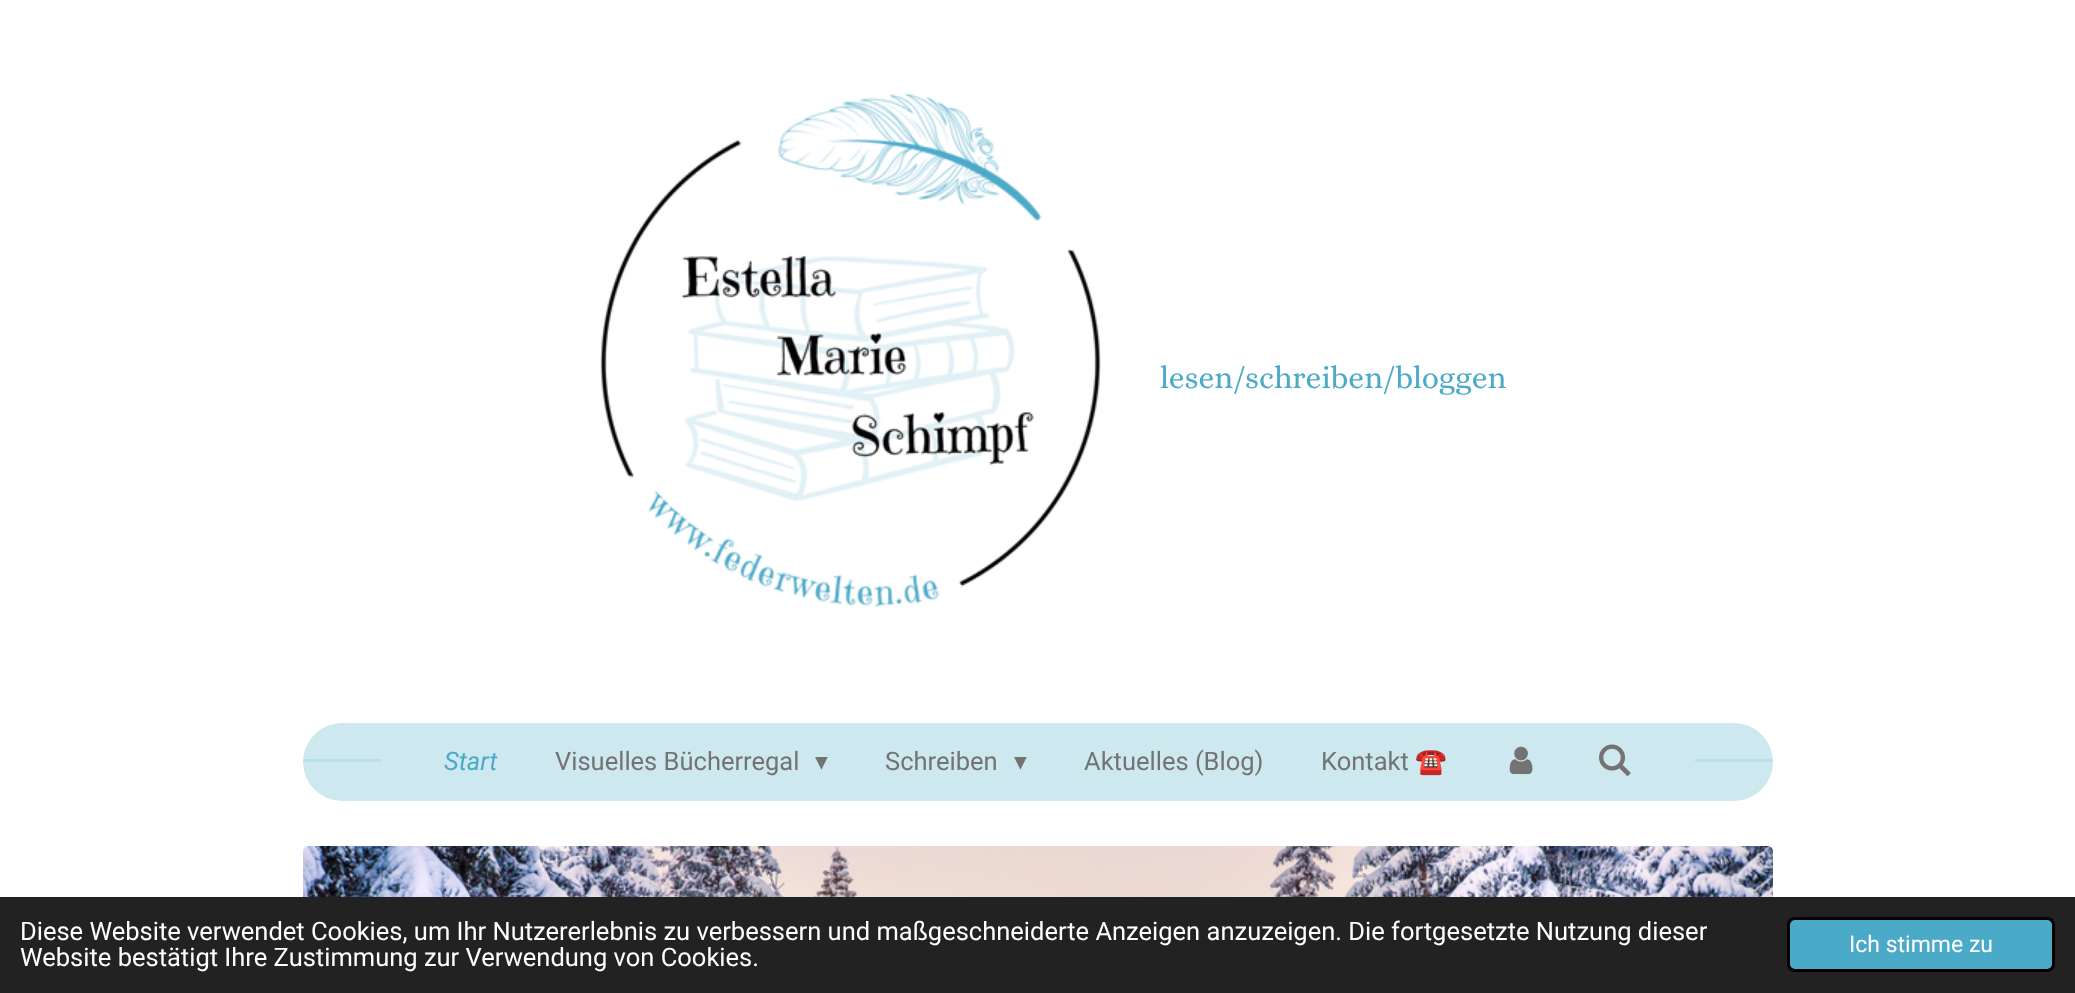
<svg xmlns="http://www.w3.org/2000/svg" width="2075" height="993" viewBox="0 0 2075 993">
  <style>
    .t1 { font: 31.5px Alice; fill: #4caac9; }
    .t2 { font: italic 25.5px Roboto; fill: #4caac9; }
    .t3 { font: 25.5px Roboto; fill: #737373; }
    .t4 { font: 25.5px DejaVu Sans; fill: #737373; }
    .t5 { font: 25.5px Noto Color Emoji; fill: #737373; }
    .t6 { font: 25.5px Roboto; fill: #fff; }
    .t7 { font: 23px Roboto; fill: #fff; }
  </style>
  <rect width="100%" height="100%" fill="#fff"/>
  <image x="600" y="93" width="501" height="514" href="images/1.png"/>
  <text x="1160" y="388" class="t1">lesen/schreiben/bloggen</text>
  <rect x="303" y="723" width="1470" height="78" rx="39" fill="#cee8f0"/>
  <rect x="303" y="759" width="78" height="3" fill="#4caac926"/>
  <text x="444" y="770" class="t2">Start</text>
  <text x="555" y="770" class="t3">Visuelles Bücherregal</text>
  <text x="815" y="770" class="t4">▾</text>
  <text x="885" y="770" class="t3">Schreiben</text>
  <text x="1014" y="770" class="t4">▾</text>
  <text x="1084" y="770" class="t3">Aktuelles (Blog)</text>
  <text x="1321" y="770" class="t3">Kontakt</text>
  <text x="1415" y="770" class="t5">☎️</text>
  <image x="1509" y="746" width="24" height="29" href="images/2.png"/>
  <image x="1599" y="744" width="32" height="33" href="images/3.png"/>
  <rect x="1695" y="759" width="78" height="3" fill="#4caac926"/>
  <image x="303" y="846" width="1470" height="51" href="images/4.png"/>
  <rect x="0" y="897" width="2075" height="96" fill="#222"/>
  <text x="20" y="940" class="t6">Diese Website verwendet Cookies, um Ihr Nutzererlebnis zu verbessern und maßgeschneiderte Anzeigen anzuzeigen. Die fortgesetzte Nutzung dieser</text>
  <text x="20" y="966" class="t6">Website bestätigt Ihre Zustimmung zur Verwendung von Cookies.</text>
  <rect x="1788.5" y="918.5" width="265" height="52" rx="6.5" fill="#4caac9" stroke="#000" stroke-width="3"/>
  <text x="1849" y="952" class="t7">Ich stimme zu</text>
</svg>
